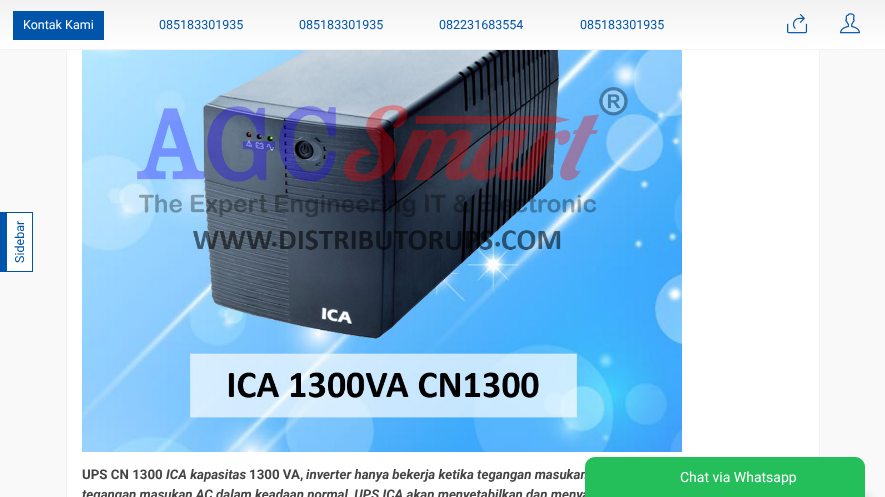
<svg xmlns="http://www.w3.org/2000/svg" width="885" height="497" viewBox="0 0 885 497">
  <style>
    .t1 { font: 12.5px Roboto; fill: #fff; }
    .t2 { font: 12.5px Roboto; fill: #05a; }
    .t3 { font: bold 13.3px Roboto; fill: #444; }
    .t4 { font: italic bold 13.3px Roboto; fill: #444; }
    .t5 { font: 14px Roboto; fill: #fff; }
  </style>
  <defs>
    <linearGradient id="g1" gradientUnits="userSpaceOnUse" x1="443" y1="0" x2="443" y2="49"><stop offset="0" stop-color="#f2f2f2"/><stop offset="1" stop-color="#fff"/></linearGradient>
    <linearGradient id="g2" gradientUnits="userSpaceOnUse" x1="443" y1="49" x2="443" y2="98"><stop offset="0" stop-color="#f2f2f2"/><stop offset="1" stop-color="#fff"/></linearGradient>
  </defs>
  <rect width="100%" height="100%" fill="#f9f9f9"/>
  <rect x="67" y="50" width="752" height="447" fill="#fff"/>
  <rect x="66.5" y="-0.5" width="753" height="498" fill="none" stroke="#f2f2f2"/>
  <rect x="0" y="0" width="885" height="49" fill="url(#g1)"/>
  <rect x="0" y="49" width="885" height="1" fill="url(#g2)"/>
  <rect x="13" y="11" width="91" height="29" fill="#05a"/>
  <text x="23" y="29" class="t1">Kontak Kami</text>
  <text x="159" y="29" class="t2">085183301935</text>
  <text x="299" y="29" class="t2">085183301935</text>
  <text x="439" y="29" class="t2">082231683554</text>
  <text x="580" y="29" class="t2">085183301935</text>
  <image x="787" y="14" width="21" height="20" href="images/1.png"/>
  <image x="840" y="13" width="20" height="21" href="images/2.png"/>
  <rect x="7" y="213" width="25" height="58" fill="#fff"/>
  <rect x="0" y="212" width="7" height="60" fill="#05a"/>
  <rect x="0" y="212" width="33" height="1" fill="#05a"/>
  <rect x="32" y="212" width="1" height="60" fill="#05a"/>
  <rect x="0" y="271" width="33" height="1" fill="#05a"/>
  <text x="24" y="263" transform="rotate(-90 24 263)" class="t2">Sidebar</text>
  <image x="82" y="50" width="600" height="402" href="images/3.png"/>
  <text x="82" y="479" class="t3">UPS CN 1300</text>
  <text x="166" y="479" class="t4">ICA kapasitas</text>
  <text x="249" y="479" class="t3">1300 VA,</text>
  <text x="306" y="479" class="t4">inverter hanya bekerja ketika tegangan masukan</text>
  <text x="82" y="499" class="t4">tegangan masukan AC dalam keadaan normal, UPS ICA akan menyetabilkan dan menya</text>
  <rect x="579" y="493" width="292" height="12" fill="#33333317" filter="blur(3px)"/>
  <path d="M595 457H855C860.5 457 865 461.5 865 467V497H585V467C585 461.5 589.5 457 595 457Z" fill="#24be5b"/>
  <text x="680" y="482" class="t5">Chat via Whatsapp</text>
</svg>
